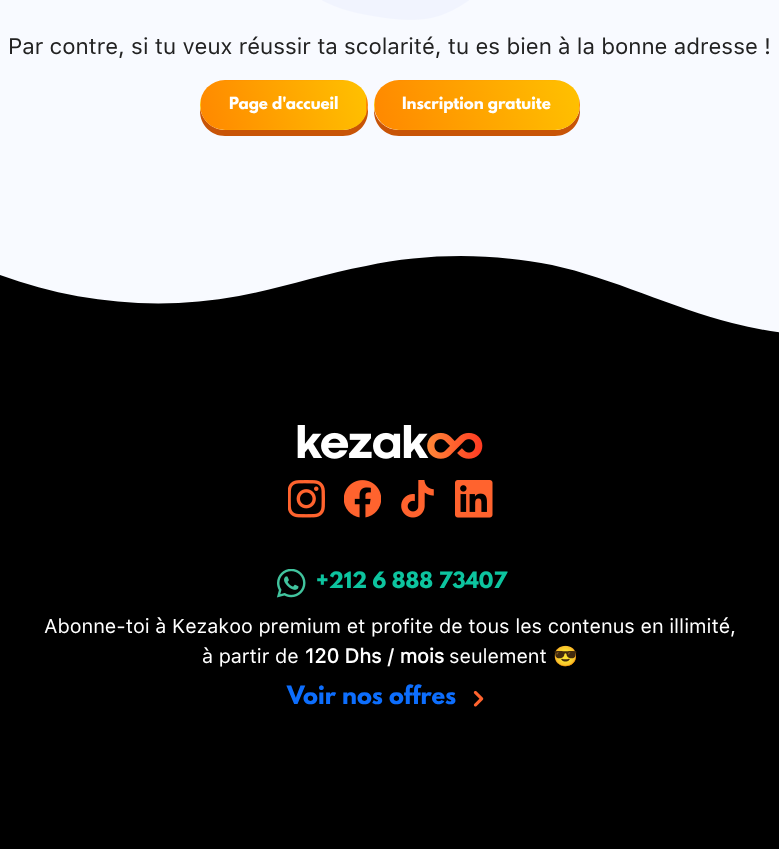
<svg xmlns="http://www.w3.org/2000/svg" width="779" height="849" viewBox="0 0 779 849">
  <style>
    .t1 { font: 22.5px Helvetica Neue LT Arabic; fill: #222; }
    .t2 { font: bold 15px League Spartan; fill: #fff; }
    .t3 { font: bold 20px League Spartan; fill: #0dc49f; }
    .t4 { font: 20px Helvetica Neue LT Arabic; fill: #fff; }
    .t5 { font: bold 20px Helvetica Neue LT Arabic; fill: #fff; }
    .t6 { font: 20px Noto Color Emoji; fill: #fff; }
    .t7 { font: bold 22.5px League Spartan; fill: #0d6efd; }
  </style>
  <defs>
    <clipPath id="clip1"><rect x="200" y="80" width="168" height="50" rx="25"/></clipPath>
    <linearGradient id="g1" gradientUnits="userSpaceOnUse" x1="366" y1="33" x2="201" y2="82"><stop offset="0.02" stop-color="#ffc000"/><stop offset="0.96" stop-color="#ff8a00"/></linearGradient>
    <linearGradient id="g2" gradientUnits="userSpaceOnUse" x1="201" y1="81" x2="36" y2="129"><stop offset="0.02" stop-color="#ffc000"/><stop offset="0.96" stop-color="#ff8a00"/></linearGradient>
    <linearGradient id="g3" gradientUnits="userSpaceOnUse" x1="366" y1="81" x2="201" y2="129"><stop offset="0.02" stop-color="#ffc000"/><stop offset="0.96" stop-color="#ff8a00"/></linearGradient>
    <linearGradient id="g4" gradientUnits="userSpaceOnUse" x1="531" y1="81" x2="366" y2="129"><stop offset="0.02" stop-color="#ffc000"/><stop offset="0.96" stop-color="#ff8a00"/></linearGradient>
    <linearGradient id="g5" gradientUnits="userSpaceOnUse" x1="366" y1="128" x2="201" y2="177"><stop offset="0.02" stop-color="#ffc000"/><stop offset="0.96" stop-color="#ff8a00"/></linearGradient>
    <clipPath id="clip2"><rect x="374" y="80" width="206" height="50" rx="25"/></clipPath>
    <linearGradient id="g6" gradientUnits="userSpaceOnUse" x1="577" y1="28" x2="377" y2="87"><stop offset="0.02" stop-color="#ffc000"/><stop offset="0.96" stop-color="#ff8a00"/></linearGradient>
    <linearGradient id="g7" gradientUnits="userSpaceOnUse" x1="373" y1="75" x2="173" y2="135"><stop offset="0.02" stop-color="#ffc000"/><stop offset="0.96" stop-color="#ff8a00"/></linearGradient>
    <linearGradient id="g8" gradientUnits="userSpaceOnUse" x1="577" y1="75" x2="377" y2="135"><stop offset="0.02" stop-color="#ffc000"/><stop offset="0.96" stop-color="#ff8a00"/></linearGradient>
    <linearGradient id="g9" gradientUnits="userSpaceOnUse" x1="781" y1="75" x2="580" y2="135"><stop offset="0.02" stop-color="#ffc000"/><stop offset="0.96" stop-color="#ff8a00"/></linearGradient>
    <linearGradient id="g10" gradientUnits="userSpaceOnUse" x1="577" y1="123" x2="377" y2="182"><stop offset="0.02" stop-color="#ffc000"/><stop offset="0.96" stop-color="#ff8a00"/></linearGradient>
  </defs>
  <rect width="100%" height="100%" fill="#f8faff"/>
  <image x="322" y="0" width="147" height="20" href="images/1.png"/>
  <text x="8" y="54" class="t1">Par contre, si tu veux réussir ta scolarité, tu es bien à la bonne adresse !</text>
  <path d="M200 108V111C200 125 211 136 225 136H343C357 136 368 125 368 111L367 106C367 119 356 130 342 130H225C212 130 202 120 200 108Z" fill="#c85407"/>
  <g clip-path="url(#clip1)">
    <rect x="218" y="80" width="132" height="1" fill="url(#g1)"/>
    <rect x="200" y="98" width="1" height="14" fill="url(#g2)"/>
    <rect x="201" y="81" width="165" height="48" fill="url(#g3)"/>
    <rect x="366" y="95" width="2" height="20" fill="url(#g4)"/>
    <rect x="218" y="129" width="132" height="1" fill="url(#g5)"/>
  </g>
  <text x="229" y="109" class="t2">Page d'accueil</text>
  <path d="M374 109V111C374 125 385 136 399 136H555C569 136 580 125 580 111V108C578 120 568 130 555 130H399C386 130 376 121 374 109Z" fill="#c85407"/>
  <g clip-path="url(#clip2)">
    <rect x="392" y="80" width="170" height="1" fill="url(#g6)"/>
    <rect x="374" y="98" width="1" height="14" fill="url(#g7)"/>
    <rect x="375" y="81" width="204" height="48" fill="url(#g8)"/>
    <rect x="579" y="98" width="1" height="14" fill="url(#g9)"/>
    <rect x="392" y="129" width="170" height="1" fill="url(#g10)"/>
  </g>
  <text x="402" y="109" class="t2">Inscription gratuite</text>
  <rect x="0" y="256" width="779" height="593" fill="#000"/>
  <path d="M239 296C282 288 323 274 366 266C427 253 491 253 552 265C612 278 673 308 732 323C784 336 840 342 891 325V255H0V275C76 303 159 311 239 296Z" fill="#f8faff"/>
  <image x="297" y="425" width="186" height="34" href="images/2.png"/>
  <image x="288" y="480" width="37" height="38" href="images/3.png"/>
  <image x="344" y="480" width="37" height="38" href="images/4.png"/>
  <image x="401" y="480" width="33" height="38" href="images/5.png"/>
  <image x="455" y="480" width="38" height="38" href="images/6.png"/>
  <image x="276" y="569" width="30" height="29" href="images/7.png"/>
  <text x="316" y="588" class="t3">+212 6 888 73407</text>
  <text x="44" y="633" class="t4">Abonne-toi à Kezakoo premium et profite de tous les contenus en illimité,</text>
  <text x="202" y="663" class="t4">à partir de</text>
  <text x="305" y="663" class="t5">120 Dhs / mois</text>
  <text x="449" y="663" class="t4">seulement</text>
  <text x="553" y="663" class="t6">😎</text>
  <text x="287" y="704" class="t7">Voir nos offres</text>
  <image x="473" y="690" width="11" height="17" href="images/8.png"/>
</svg>
